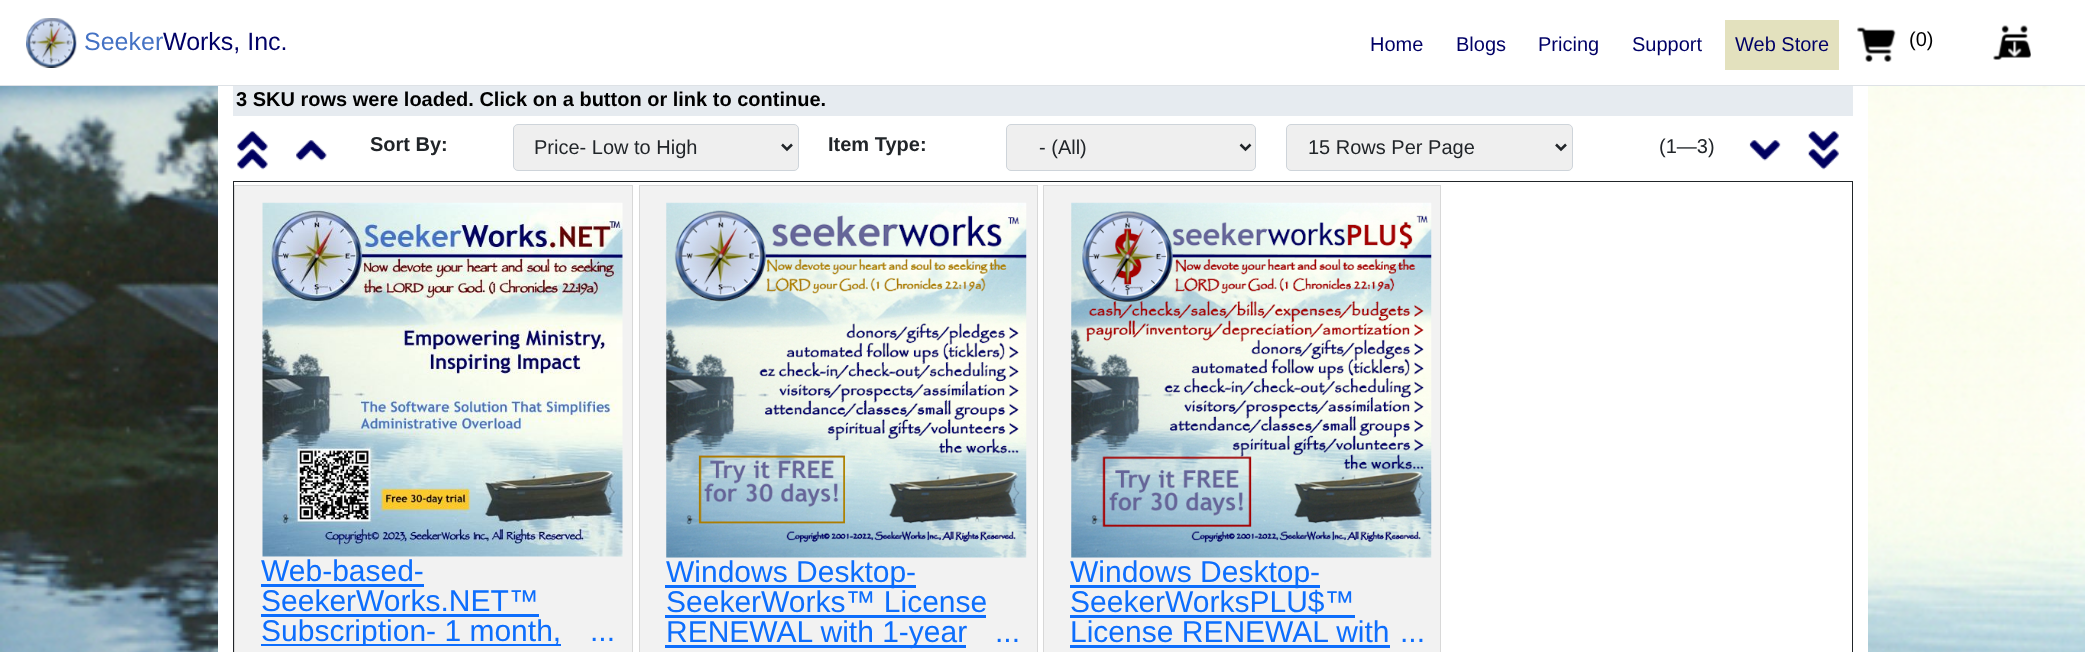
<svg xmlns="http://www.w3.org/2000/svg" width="2085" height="652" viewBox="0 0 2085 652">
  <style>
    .t1 { font: 25px Liberation Sans; fill: #4472c4; }
    .t2 { font: 25px Liberation Sans; fill: #006; }
    .t3 { font: 20px Liberation Sans; fill: #006; }
    .t4 { font: 20px Liberation Sans; fill: #000; }
    .t5 { font: bold 20px Liberation Sans; fill: #000; }
    .t6 { font: bold 20px Liberation Sans; fill: #212529; }
    .t7 { font: 20px Liberation Sans; fill: #212529; }
    .t8 { font: 30px Liberation Sans; fill: #0d6efd; }
  </style>
  <defs>
    <clipPath id="clip1"><rect x="251" y="556" width="364" height="90" rx="10"/></clipPath>
  </defs>
  <rect width="100%" height="100%" fill="#fff"/>
  <image x="0" y="86" width="2085" height="566" href="images/1.png"/>
  <rect x="0" y="85" width="2085" height="1" fill="#dee2e6"/>
  <image x="26" y="18" width="51" height="50" href="images/2.png"/>
  <text x="84" y="50" class="t1">Seeker</text>
  <text x="163" y="50" class="t2">Works, Inc.</text>
  <text x="1370" y="51" class="t3">Home</text>
  <text x="1456" y="51" class="t3">Blogs</text>
  <text x="1538" y="51" class="t3">Pricing</text>
  <text x="1632" y="51" class="t3">Support</text>
  <rect x="1725" y="20" width="114" height="50" fill="#e3e1be"/>
  <text x="1735" y="51" class="t3">Web Store</text>
  <image x="1857" y="27" width="39" height="35" href="images/3.png"/>
  <text x="1909" y="46" class="t4">(0)</text>
  <image x="1993" y="25" width="38" height="35" href="images/4.png"/>
  <rect x="218" y="86" width="1650" height="566" fill="#fff"/>
  <rect x="233" y="86" width="1620" height="30" fill="#e6ebf0"/>
  <text x="236" y="106" class="t5">3 SKU rows were loaded. Click on a button or link to continue.</text>
  <image x="237" y="131" width="31" height="39" href="images/5.png"/>
  <image x="296" y="140" width="31" height="21" href="images/6.png"/>
  <text x="370" y="151" class="t6">Sort By:</text>
  <rect x="513.5" y="124.5" width="285" height="46" rx="4.5" fill="#efefef" stroke="#ced4da"/>
  <path d="M782 144.5L787 149.5L792 144.5" fill="none" stroke="#212529" stroke-width="2.5"/>
  <text x="534" y="154" class="t7">Price- Low to High</text>
  <text x="828" y="151" class="t6">Item Type:</text>
  <rect x="1006.5" y="124.5" width="249" height="46" rx="4.5" fill="#efefef" stroke="#ced4da"/>
  <path d="M1240.5 144.5L1245.5 149.5L1250.5 144.5" fill="none" stroke="#212529" stroke-width="2.5"/>
  <text x="1039" y="154" class="t7">- (All)</text>
  <rect x="1286.5" y="124.5" width="286" height="46" rx="4.5" fill="#efefef" stroke="#ced4da"/>
  <path d="M1556 144.5L1561 149.5L1566 144.5" fill="none" stroke="#212529" stroke-width="2.5"/>
  <text x="1308" y="154" class="t7">15 Rows Per Page</text>
  <text x="1659" y="153" class="t7">(1—3)</text>
  <image x="1749" y="140" width="32" height="21" href="images/7.png"/>
  <image x="1808" y="131" width="31" height="39" href="images/8.png"/>
  <rect x="233.5" y="181.5" width="1619" height="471" fill="none" stroke="#212529"/>
  <rect x="234.5" y="185.5" width="398" height="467" fill="#f2f2f2" stroke="#d8d8d8"/>
  <image x="262" y="202" width="361" height="355" href="images/9.png"/>
  <text x="261" y="581" class="t8">Web-based-</text>
  <rect x="261" y="584" width="163" height="3" fill="#0d6efd"/>
  <text x="261" y="611" class="t8">SeekerWorks.NET™</text>
  <rect x="261" y="614" width="278" height="3" fill="#0d6efd"/>
  <rect x="261" y="644" width="300" height="2" fill="#0d6efd"/>
  <g clip-path="url(#clip1)">
    <text x="261" y="641" class="t8">Subscription- 1 month,</text>
  </g>
  <text x="590" y="641" class="t8">...</text>
  <rect x="639.5" y="185.5" width="398" height="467" fill="#f2f2f2" stroke="#d8d8d8"/>
  <image x="666" y="202" width="361" height="356" href="images/10.png"/>
  <rect x="665" y="585" width="251" height="3" fill="#0d6efd"/>
  <text x="666" y="582" class="t8">Windows Desktop-</text>
  <text x="666" y="612" class="t8">SeekerWorks™ License</text>
  <rect x="665" y="615" width="321" height="3" fill="#0d6efd"/>
  <rect x="665" y="645" width="301" height="3" fill="#0d6efd"/>
  <text x="666" y="642" class="t8">RENEWAL with 1-year</text>
  <text x="995" y="642" class="t8">...</text>
  <rect x="1043.5" y="185.5" width="397" height="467" fill="#f2f2f2" stroke="#d8d8d8"/>
  <image x="1071" y="202" width="361" height="356" href="images/11.png"/>
  <rect x="1070" y="585" width="250" height="3" fill="#0d6efd"/>
  <text x="1070" y="582" class="t8">Windows Desktop-</text>
  <text x="1070" y="612" class="t8">SeekerWorksPLU$™</text>
  <rect x="1070" y="615" width="285" height="3" fill="#0d6efd"/>
  <text x="1070" y="642" class="t8">License RENEWAL with</text>
  <rect x="1070" y="645" width="320" height="3" fill="#0d6efd"/>
  <text x="1400" y="642" class="t8">...</text>
</svg>
